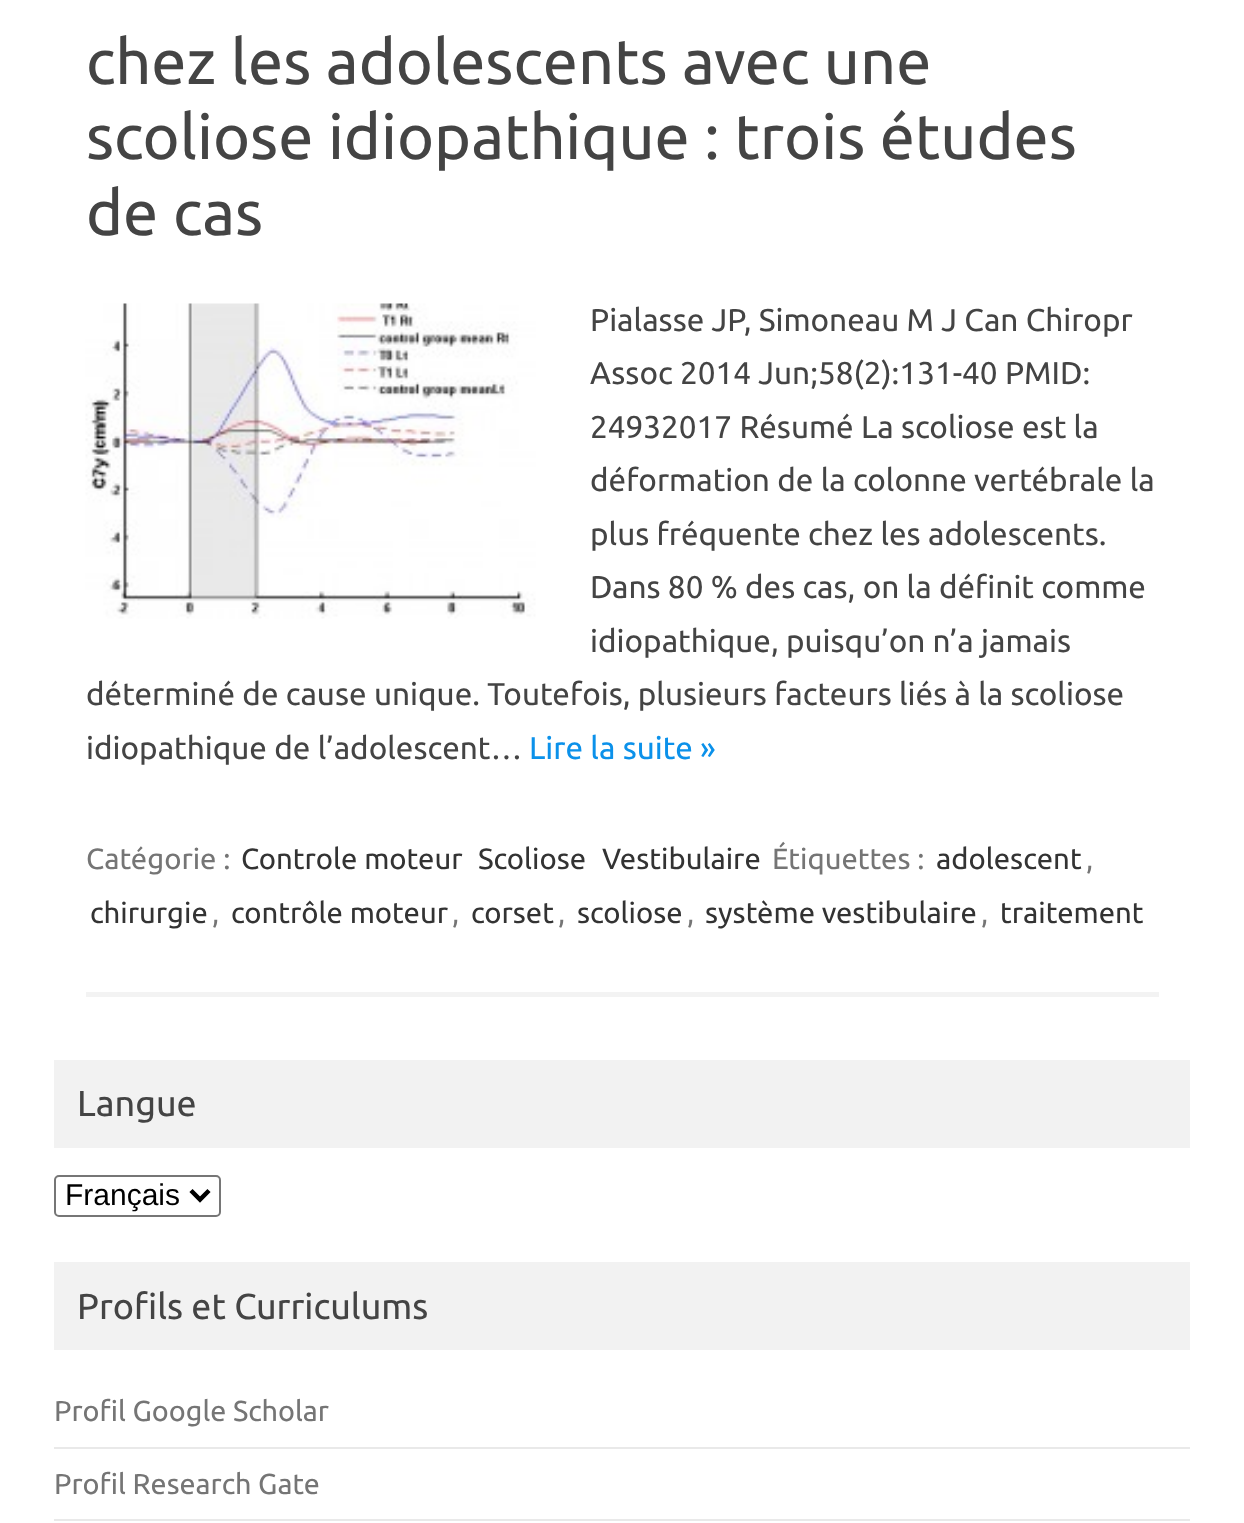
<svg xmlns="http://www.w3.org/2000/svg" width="1244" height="1523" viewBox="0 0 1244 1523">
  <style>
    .t1 { font: 63px Ubuntu; fill: #444; }
    .t2 { font: 31.5px Ubuntu; fill: #444; }
    .t3 { font: 31.5px Ubuntu; fill: #0b91ea; }
    .t4 { font: 29.25px Ubuntu; fill: #757575; }
    .t5 { font: 29.25px Ubuntu; fill: #333; }
    .t6 { font: 36px Ubuntu; fill: #444; }
    .t7 { font: 30px Liberation Sans; fill: #000; }
    .t8 { font: 28.75px Ubuntu; fill: #757575; }
  </style>
  <rect width="100%" height="100%" fill="#fff"/>
  <rect x="86" y="992" width="1073" height="5" fill="#f3f3f3"/>
  <text x="86" y="84" class="t1">chez les adolescents avec une</text>
  <text x="86" y="159" class="t1">scoliose idiopathique : trois études</text>
  <text x="86" y="235" class="t1">de cas</text>
  <image x="85" y="303" width="451" height="316" href="images/1.png"/>
  <text x="590" y="331" class="t2">Pialasse JP, Simoneau M J Can Chiropr</text>
  <text x="590" y="384" class="t2">Assoc 2014 Jun;58(2):131-40 PMID:</text>
  <text x="590" y="438" class="t2">24932017 Résumé La scoliose est la</text>
  <text x="590" y="491" class="t2">déformation de la colonne vertébrale la</text>
  <text x="590" y="545" class="t2">plus fréquente chez les adolescents.</text>
  <text x="590" y="598" class="t2">Dans 80 % des cas, on la définit comme</text>
  <text x="590" y="652" class="t2">idiopathique, puisqu’on n’a jamais</text>
  <text x="86" y="705" class="t2">déterminé de cause unique. Toutefois, plusieurs facteurs liés à la scoliose</text>
  <text x="86" y="759" class="t2">idiopathique de l’adolescent…</text>
  <text x="529" y="759" class="t3">Lire la suite »</text>
  <text x="86" y="869" class="t4">Catégorie :</text>
  <text x="241" y="869" class="t5">Controle moteur</text>
  <text x="478" y="869" class="t5">Scoliose</text>
  <text x="602" y="869" class="t5">Vestibulaire</text>
  <text x="772" y="869" class="t4">Étiquettes :</text>
  <text x="936" y="869" class="t5">adolescent</text>
  <text x="1086" y="869" class="t4">,</text>
  <text x="90" y="923" class="t5">chirurgie</text>
  <text x="212" y="923" class="t4">,</text>
  <text x="231" y="923" class="t5">contrôle moteur</text>
  <text x="452" y="923" class="t4">,</text>
  <text x="471" y="923" class="t5">corset</text>
  <text x="558" y="923" class="t4">,</text>
  <text x="577" y="923" class="t5">scoliose</text>
  <text x="687" y="923" class="t4">,</text>
  <text x="705" y="923" class="t5">système vestibulaire</text>
  <text x="981" y="923" class="t4">,</text>
  <text x="1000" y="923" class="t5">traitement</text>
  <rect x="54" y="1060" width="1136" height="88" fill="#f2f2f2"/>
  <text x="77" y="1116" class="t6">Langue</text>
  <rect x="55" y="1176" width="165" height="40" rx="4" fill="none" stroke="#767676" stroke-width="2"/>
  <path d="M191 1190.5L200 1199.5L209 1190.5" fill="none" stroke="#000" stroke-width="4.5"/>
  <text x="65" y="1205" class="t7">Français</text>
  <rect x="54" y="1262" width="1136" height="88" fill="#f2f2f2"/>
  <text x="77" y="1319" class="t6">Profils et Curriculums</text>
  <rect x="54" y="1447" width="1136" height="2" fill="#e9e9e9"/>
  <text x="54" y="1421" class="t8">Profil Google Scholar</text>
  <rect x="54" y="1519" width="1136" height="2" fill="#e9e9e9"/>
  <text x="54" y="1494" class="t8">Profil Research Gate</text>
</svg>
